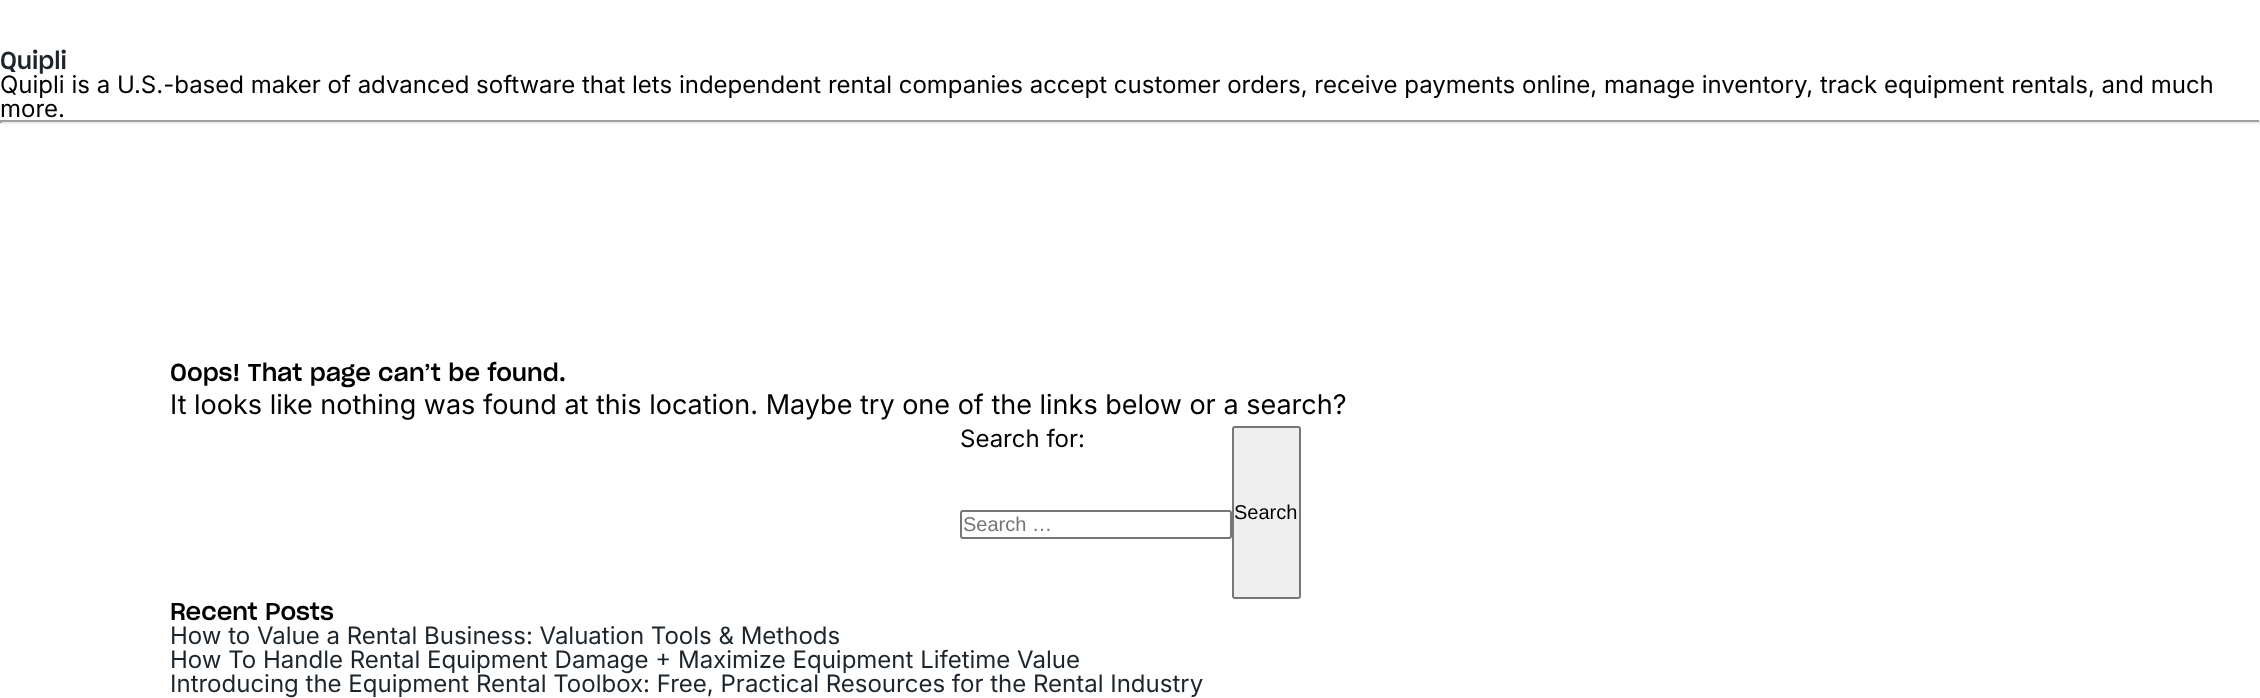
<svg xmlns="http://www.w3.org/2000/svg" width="2260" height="698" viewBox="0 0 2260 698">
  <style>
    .t1 { font: 500 24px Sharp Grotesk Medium; fill: #1d252c; }
    .t2 { font: 24px Inter; fill: #000; }
    .t3 { font: 500 24px Sharp Grotesk Medium; fill: #000; }
    .t4 { font: 27px Inter; fill: #000; }
    .t5 { font: 20px Liberation Sans; fill: #757575; }
    .t6 { font: 20px Liberation Sans; fill: #000; }
    .t7 { font: 24px Inter; fill: #1d252c; }
  </style>
  <rect width="100%" height="100%" fill="#fff"/>
  <text x="0" y="69" class="t1">Quipli</text>
  <text x="0" y="93" class="t2">Quipli is a U.S.-based maker of advanced software that lets independent rental companies accept customer orders, receive payments online, manage inventory, track equipment rentals, and much</text>
  <text x="0" y="117" class="t2">more.</text>
  <rect x="0" y="120" width="2260" height="2" fill="#9f9f9f"/>
  <rect x="2259" y="120" width="1" height="3" fill="#eee"/>
  <rect x="0" y="122" width="2260" height="2" fill="#eee"/>
  <rect x="0" y="120" width="2" height="3" fill="#9f9f9f"/>
  <text x="170" y="381" class="t3">Oops! That page can’t be found.</text>
  <text x="170" y="414" class="t4">It looks like nothing was found at this location. Maybe try one of the links below or a search?</text>
  <text x="960" y="447" class="t2">Search for:</text>
  <rect x="961" y="511" width="270" height="27" rx="2" fill="none" stroke="#767676" stroke-width="2"/>
  <text x="963" y="531" class="t5">Search …</text>
  <rect x="1233" y="427" width="67" height="171" rx="2" fill="#efefef" stroke="#767676" stroke-width="2"/>
  <text x="1234" y="519" class="t6">Search</text>
  <text x="170" y="620" class="t3">Recent Posts</text>
  <text x="170" y="644" class="t7">How to Value a Rental Business: Valuation Tools &amp; Methods</text>
  <text x="170" y="668" class="t7">How To Handle Rental Equipment Damage + Maximize Equipment Lifetime Value</text>
  <text x="170" y="692" class="t7">Introducing the Equipment Rental Toolbox: Free, Practical Resources for the Rental Industry</text>
</svg>
